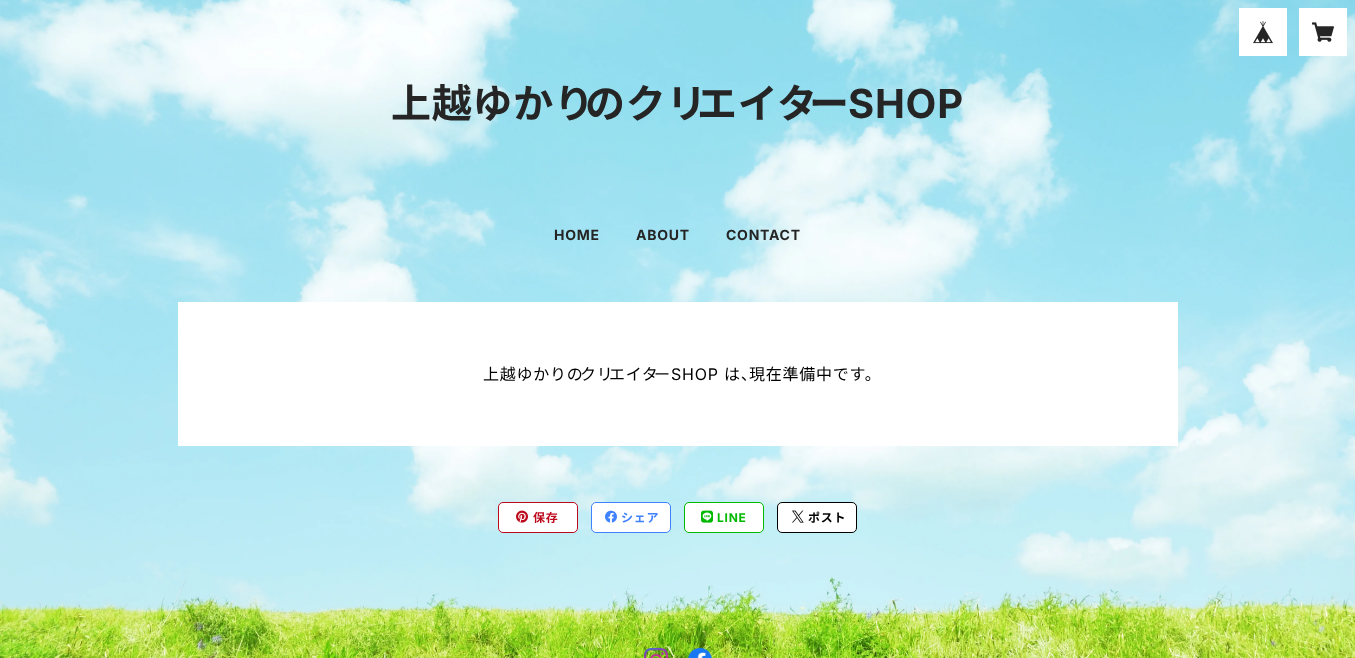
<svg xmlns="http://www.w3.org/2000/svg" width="1355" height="658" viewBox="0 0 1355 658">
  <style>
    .t1 { font: bold 40px Noto Sans JP; letter-spacing: 0.75px; fill: #252525; }
    .t2 { font: bold 40px Inter; letter-spacing: 0.75px; fill: #252525; }
    .t3 { font: bold 14px Inter; letter-spacing: 0.75px; fill: #252525; }
    .t4 { font: 16px Noto Sans JP; letter-spacing: 0.75px; fill: #000; }
    .t5 { font: 16px Inter; letter-spacing: 0.75px; fill: #000; }
    .t6 { font: bold 12px Noto Sans JP; letter-spacing: 0.75px; fill: #bd091c; }
    .t7 { font: bold 12px Noto Sans JP; letter-spacing: 0.75px; fill: #4081ff; }
    .t8 { font: bold 12px Inter; letter-spacing: 0.75px; fill: #00b901; }
    .t9 { font: bold 12px Noto Sans JP; letter-spacing: 0.75px; fill: #000; }
  </style>
  <rect width="100%" height="100%" fill="#fff"/>
  <image x="0" y="0" width="1355" height="658" href="images/1.png"/>
  <rect x="1239" y="8" width="48" height="48" fill="#fff"/>
  <image x="1253" y="21" width="20" height="23" href="images/2.png"/>
  <rect x="1299" y="8" width="48" height="48" fill="#fff"/>
  <image x="1312" y="22" width="22" height="20" href="images/3.png"/>
  <text x="391" y="118" class="t1">上越ゆかり</text>
  <text x="585" y="118" class="t1">のクリ</text>
  <text x="697" y="118" class="t1">エイタ</text>
  <text x="809" y="118" class="t1">ー</text>
  <text x="848" y="118" class="t2">SHOP</text>
  <text x="554" y="240" class="t3">HOME</text>
  <text x="636" y="240" class="t3">ABOUT</text>
  <text x="726" y="240" class="t3">CONTACT</text>
  <rect x="178" y="302" width="1000" height="144" fill="#fff"/>
  <text x="483" y="380" class="t4">上越ゆかりの</text>
  <text x="580" y="380" class="t4">クリ</text>
  <text x="609" y="380" class="t4">エイタ</text>
  <text x="654" y="380" class="t4">ー</text>
  <text x="671" y="380" class="t5">SHOP</text>
  <text x="724" y="380" class="t4">は、</text>
  <text x="749" y="380" class="t4">現在準備中です。</text>
  <rect x="498.5" y="502.5" width="79" height="30" rx="4.5" fill="#fff" stroke="#bd091c"/>
  <image x="516" y="510" width="12" height="13" href="images/4.png"/>
  <text x="533" y="522" class="t6">保存</text>
  <rect x="591.5" y="502.5" width="79" height="30" rx="4.5" fill="#fff" stroke="#4081ff"/>
  <image x="605" y="510" width="12" height="13" href="images/5.png"/>
  <text x="621" y="522" class="t7">シェア</text>
  <rect x="684.5" y="502.5" width="79" height="30" rx="4.5" fill="#fff" stroke="#00b901"/>
  <image x="701" y="510" width="12" height="13" href="images/6.png"/>
  <text x="717" y="522" class="t8">LINE</text>
  <rect x="777.5" y="502.5" width="79" height="30" rx="4.5" fill="#fff" stroke="#000"/>
  <image x="792" y="510" width="12" height="13" href="images/7.png"/>
  <text x="808" y="522" class="t9">ポスト</text>
  <image x="644" y="648" width="24" height="10" href="images/8.png"/>
  <image x="688" y="648" width="24" height="10" href="images/9.png"/>
</svg>
